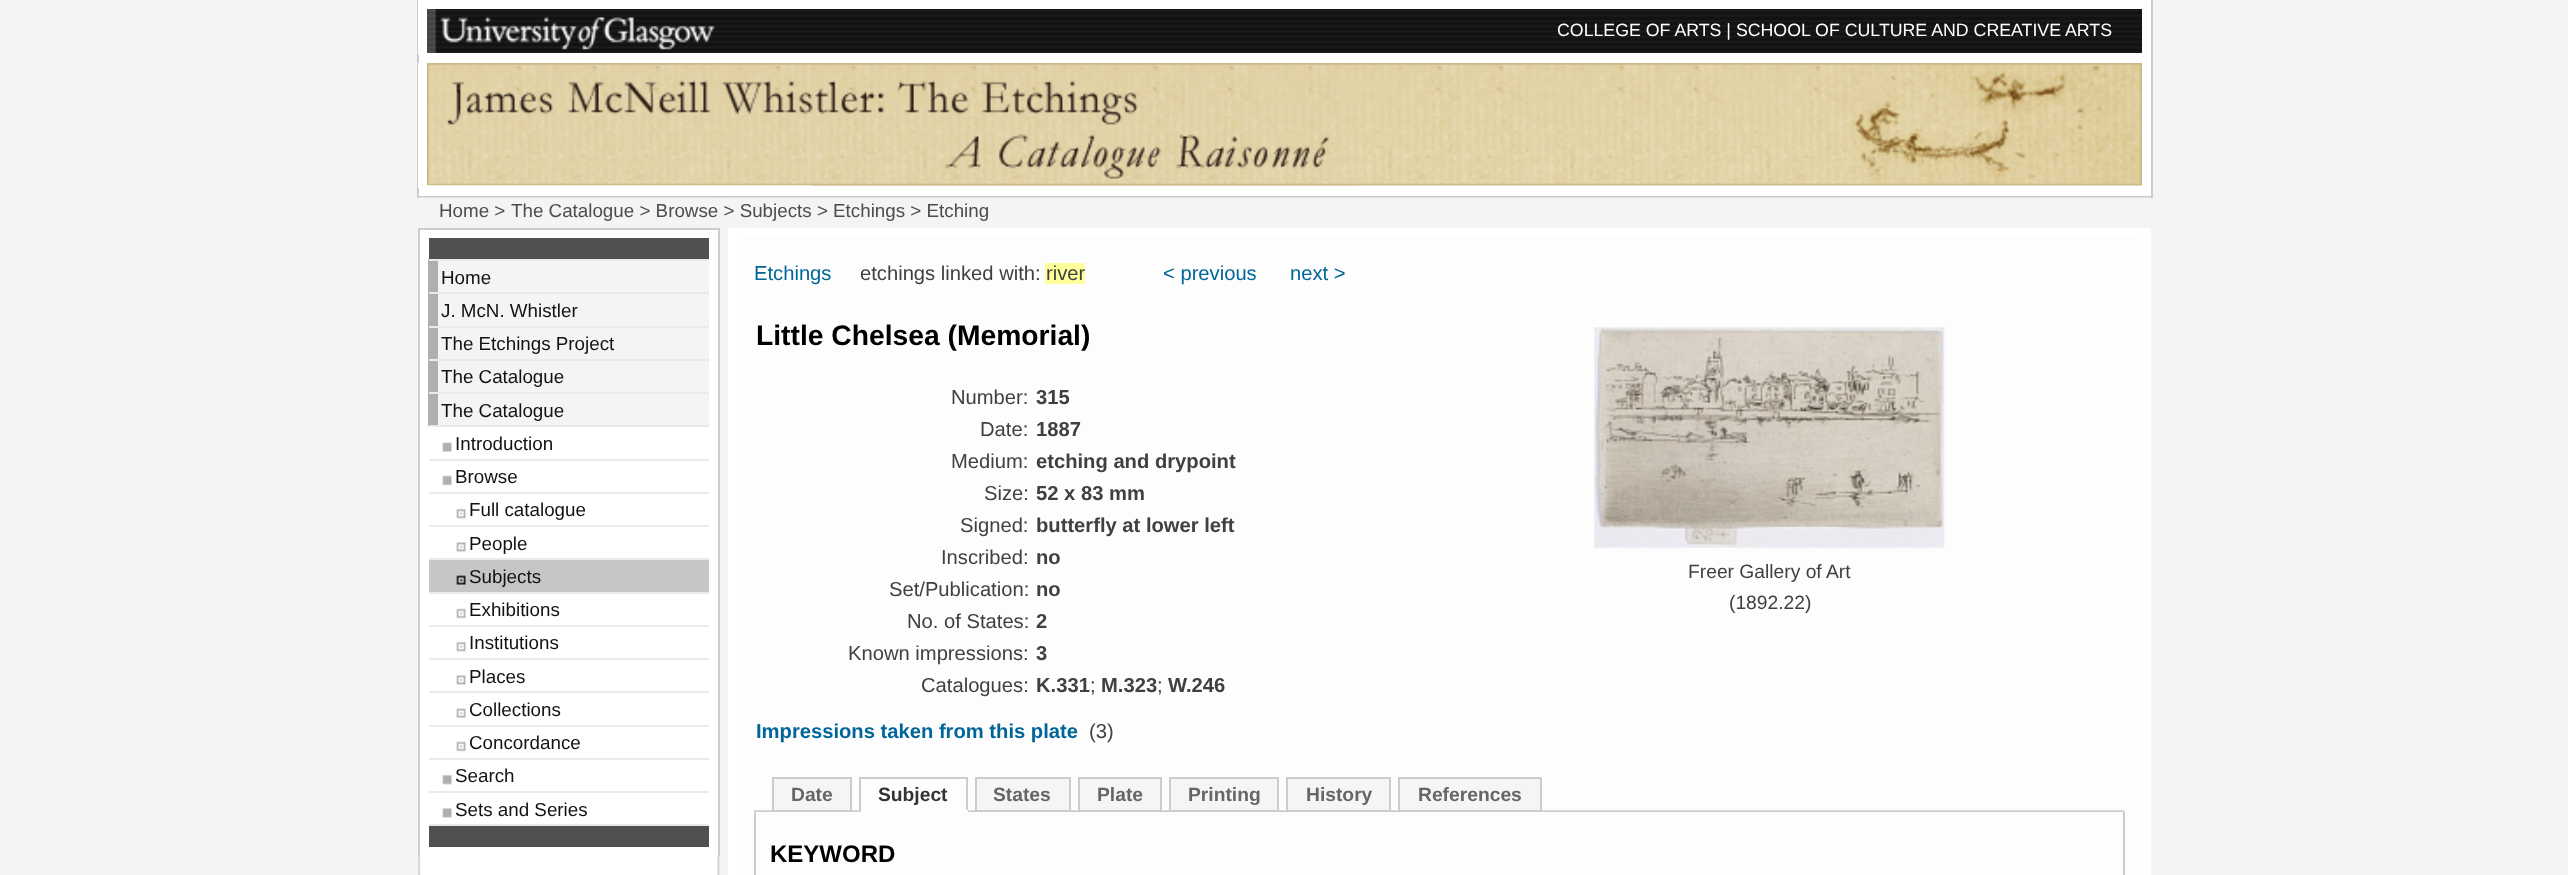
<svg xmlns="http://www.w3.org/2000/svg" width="2568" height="875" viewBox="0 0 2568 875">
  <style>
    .t1 { font: 17.75px Liberation Sans; fill: #fff; }
    .t2 { font: 18.8px Liberation Sans; fill: #4c4c4c; }
    .t3 { font: 18.8px Liberation Sans; fill: #121212; }
    .t4 { font: 20.2px Liberation Sans; fill: #069; }
    .t5 { font: 20.2px Liberation Sans; fill: #404040; }
    .t6 { font: bold 28.25px Liberation Sans; fill: #000; }
    .t7 { font: 19.25px Liberation Sans; fill: #404040; }
    .t8 { font: bold 20.2px Liberation Sans; fill: #404040; }
    .t9 { font: bold 20.2px Liberation Sans; fill: #069; }
    .t10 { font: bold 19.25px Liberation Sans; fill: #666; }
    .t11 { font: bold 19.25px Liberation Sans; fill: #333; }
    .t12 { font: bold 24px Liberation Sans; fill: #000; }
  </style>
  <rect width="100%" height="100%" fill="#f4f4f4"/>
  <rect x="419" y="55" width="1732" height="141" fill="#fff"/>
  <rect x="2151" y="0" width="2" height="198" fill="#ccc"/>
  <rect x="417" y="196" width="1736" height="2" fill="#ccc"/>
  <rect x="417" y="0" width="2" height="198" fill="#ccc"/>
  <image x="427" y="9" width="1715" height="44" href="images/1.png"/>
  <rect x="427" y="0" width="1715" height="9" fill="#fff"/>
  <rect x="2142" y="0" width="9" height="53" fill="#fff"/>
  <rect x="418" y="53" width="1733" height="2" fill="#fff"/>
  <rect x="418" y="0" width="9" height="53" fill="#fff"/>
  <image x="440" y="17" width="275" height="33" href="images/2.png"/>
  <text x="1557" y="36" class="t1">COLLEGE OF ARTS | SCHOOL OF CULTURE AND CREATIVE ARTS</text>
  <image x="812" y="63" width="1330" height="123" href="images/3.png"/>
  <rect x="418" y="63" width="1" height="125" fill="#fff"/>
  <image x="427" y="63" width="931" height="123" href="images/4.png"/>
  <image x="418" y="197" width="1733" height="678" href="images/5.png"/>
  <rect x="418" y="198" width="1733" height="30" fill="#f4f4f4"/>
  <image x="418" y="197" width="1733" height="1" href="images/6.png"/>
  <text x="439" y="217" class="t2">Home &gt;</text>
  <text x="511" y="217" class="t2">The Catalogue &gt; Browse &gt; Subjects &gt; Etchings &gt; Etching</text>
  <rect x="420" y="230" width="298" height="626" fill="#fff"/>
  <rect x="418" y="228" width="301" height="2" fill="#ccc"/>
  <rect x="718" y="228" width="2" height="628" fill="#ccc"/>
  <rect x="418" y="228" width="2" height="628" fill="#ccc"/>
  <rect x="429" y="238" width="280" height="21" fill="#505050"/>
  <rect x="429" y="824" width="280" height="2" fill="#eaeaea"/>
  <rect x="438" y="261" width="271" height="31" fill="#f4f4f4"/>
  <rect x="428" y="259" width="10" height="167" fill="#afafaf"/>
  <rect x="429" y="259" width="280" height="2" fill="#eaeaea"/>
  <text x="441" y="284" class="t3">Home</text>
  <rect x="438" y="294" width="271" height="32" fill="#f4f4f4"/>
  <rect x="429" y="292" width="280" height="2" fill="#eaeaea"/>
  <text x="441" y="317" class="t3">J. McN. Whistler</text>
  <rect x="438" y="328" width="271" height="31" fill="#f4f4f4"/>
  <rect x="429" y="326" width="280" height="2" fill="#eaeaea"/>
  <text x="441" y="350" class="t3">The Etchings Project</text>
  <rect x="438" y="361" width="271" height="31" fill="#f4f4f4"/>
  <rect x="429" y="359" width="280" height="2" fill="#eaeaea"/>
  <text x="441" y="383" class="t3">The Catalogue</text>
  <rect x="438" y="394" width="271" height="31" fill="#f4f4f4"/>
  <rect x="429" y="392" width="280" height="2" fill="#eaeaea"/>
  <text x="441" y="417" class="t3">The Catalogue</text>
  <image x="442" y="442" width="10" height="10" href="images/7.png"/>
  <rect x="429" y="425" width="280" height="2" fill="#eaeaea"/>
  <text x="455" y="450" class="t3">Introduction</text>
  <image x="442" y="475" width="10" height="11" href="images/8.png"/>
  <rect x="429" y="459" width="280" height="2" fill="#eaeaea"/>
  <text x="455" y="483" class="t3">Browse</text>
  <image x="456" y="508" width="10" height="11" href="images/9.png"/>
  <rect x="429" y="492" width="280" height="2" fill="#eaeaea"/>
  <text x="469" y="516" class="t3">Full catalogue</text>
  <image x="456" y="542" width="10" height="10" href="images/10.png"/>
  <rect x="429" y="525" width="280" height="2" fill="#eaeaea"/>
  <text x="469" y="550" class="t3">People</text>
  <rect x="429" y="560" width="280" height="32" fill="#c6c6c6"/>
  <image x="456" y="575" width="10" height="10" href="images/11.png"/>
  <rect x="429" y="558" width="280" height="2" fill="#eaeaea"/>
  <text x="469" y="583" class="t3">Subjects</text>
  <image x="456" y="608" width="10" height="11" href="images/12.png"/>
  <rect x="429" y="592" width="280" height="2" fill="#eaeaea"/>
  <text x="469" y="616" class="t3">Exhibitions</text>
  <image x="456" y="641" width="10" height="11" href="images/9.png"/>
  <rect x="429" y="625" width="280" height="2" fill="#eaeaea"/>
  <text x="469" y="649" class="t3">Institutions</text>
  <image x="456" y="675" width="10" height="10" href="images/10.png"/>
  <rect x="429" y="658" width="280" height="2" fill="#eaeaea"/>
  <text x="469" y="683" class="t3">Places</text>
  <image x="456" y="708" width="10" height="10" href="images/13.png"/>
  <rect x="429" y="691" width="280" height="2" fill="#eaeaea"/>
  <text x="469" y="716" class="t3">Collections</text>
  <image x="456" y="741" width="10" height="11" href="images/12.png"/>
  <rect x="429" y="725" width="280" height="2" fill="#eaeaea"/>
  <text x="469" y="749" class="t3">Concordance</text>
  <image x="442" y="774" width="10" height="11" href="images/14.png"/>
  <rect x="429" y="758" width="280" height="2" fill="#eaeaea"/>
  <text x="455" y="782" class="t3">Search</text>
  <image x="442" y="808" width="10" height="10" href="images/15.png"/>
  <rect x="429" y="791" width="280" height="2" fill="#eaeaea"/>
  <text x="455" y="816" class="t3">Sets and Series</text>
  <rect x="429" y="826" width="280" height="21" fill="#505050"/>
  <rect x="732.5" y="232.5" width="1414" height="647" fill="none" stroke="#fff" stroke-width="9"/>
  <text x="754" y="280" class="t4">Etchings</text>
  <text x="860" y="280" class="t5">etchings linked with:</text>
  <rect x="1045" y="263" width="40" height="21" fill="#fefe9b"/>
  <text x="1046" y="280" class="t5">river</text>
  <text x="1163" y="280" class="t4">&lt; previous</text>
  <text x="1290" y="280" class="t4">next &gt;</text>
  <text x="756" y="345" class="t6">Little Chelsea (Memorial)</text>
  <image x="1594" y="327" width="351" height="221" href="images/16.png"/>
  <text x="1688" y="578" class="t7">Freer Gallery of Art</text>
  <text x="1729" y="609" class="t7">(1892.22)</text>
  <text x="951" y="404" class="t5">Number:</text>
  <text x="1036" y="404" class="t8">315</text>
  <text x="980" y="436" class="t5">Date:</text>
  <text x="1036" y="436" class="t8">1887</text>
  <text x="951" y="468" class="t5">Medium:</text>
  <text x="1036" y="468" class="t8">etching and drypoint</text>
  <text x="984" y="500" class="t5">Size:</text>
  <text x="1036" y="500" class="t8">52 x 83 mm</text>
  <text x="960" y="532" class="t5">Signed:</text>
  <text x="1036" y="532" class="t8">butterfly at lower left</text>
  <text x="941" y="564" class="t5">Inscribed:</text>
  <text x="1036" y="564" class="t8">no</text>
  <text x="889" y="596" class="t5">Set/Publication:</text>
  <text x="1036" y="596" class="t8">no</text>
  <text x="907" y="628" class="t5">No. of States:</text>
  <text x="1036" y="628" class="t8">2</text>
  <text x="848" y="660" class="t5">Known impressions:</text>
  <text x="1036" y="660" class="t8">3</text>
  <text x="921" y="692" class="t5">Catalogues:</text>
  <text x="1036" y="692" class="t8">K.331</text>
  <text x="1090" y="692" class="t5">;</text>
  <text x="1101" y="692" class="t8">M.323</text>
  <text x="1157" y="692" class="t5">;</text>
  <text x="1168" y="692" class="t8">W.246</text>
  <text x="756" y="738" class="t9">Impressions taken from this plate</text>
  <text x="1089" y="738" class="t5">(3)</text>
  <image x="754" y="810" width="1371" height="2" href="images/17.png"/>
  <rect x="773" y="778" width="78" height="33" fill="#f5f5f5" stroke="#ccc" stroke-width="2"/>
  <text x="791" y="801" class="t10">Date</text>
  <rect x="859" y="777" width="109" height="2" fill="#ccc"/>
  <rect x="966" y="777" width="2" height="35" fill="#ccc"/>
  <rect x="859" y="810" width="109" height="2" fill="#fff"/>
  <rect x="859" y="777" width="2" height="35" fill="#ccc"/>
  <text x="878" y="801" class="t11">Subject</text>
  <rect x="976" y="778" width="94" height="33" fill="#f5f5f5" stroke="#ccc" stroke-width="2"/>
  <text x="993" y="801" class="t10">States</text>
  <rect x="1079" y="778" width="82" height="33" fill="#f5f5f5" stroke="#ccc" stroke-width="2"/>
  <text x="1097" y="801" class="t10">Plate</text>
  <rect x="1170" y="778" width="108" height="33" fill="#f5f5f5" stroke="#ccc" stroke-width="2"/>
  <text x="1188" y="801" class="t10">Printing</text>
  <rect x="1287" y="778" width="103" height="33" fill="#f5f5f5" stroke="#ccc" stroke-width="2"/>
  <text x="1306" y="801" class="t10">History</text>
  <rect x="1399" y="778" width="142" height="33" fill="#f5f5f5" stroke="#ccc" stroke-width="2"/>
  <text x="1418" y="801" class="t10">References</text>
  <rect x="2123" y="812" width="2" height="63" fill="#ccc"/>
  <rect x="754" y="812" width="2" height="63" fill="#ccc"/>
  <text x="770" y="862" class="t12">KEYWORD</text>
</svg>
